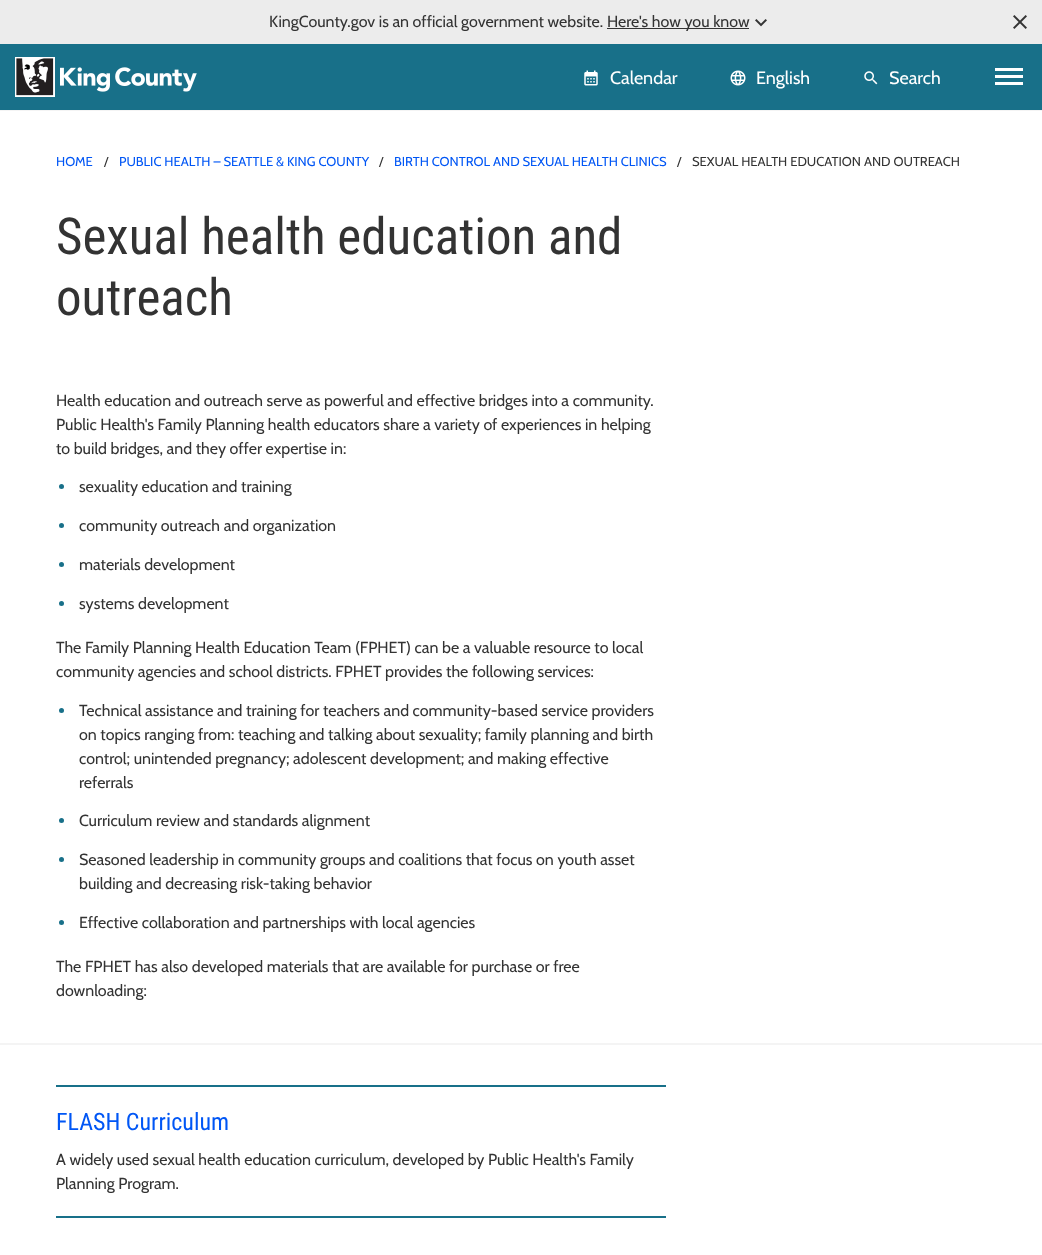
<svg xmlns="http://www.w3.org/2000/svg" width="1042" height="1255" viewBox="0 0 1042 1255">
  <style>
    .t1 { font: 16px Cabin; fill: #333; }
    .t2 { font: 18px Cabin; fill: #fff; }
    .t3 { font: 13px Cabin; fill: #0056f5; }
    .t4 { font: 13px Cabin; fill: #333; }
    .t5 { font: 51px Roboto Condensed; fill: #333; }
    .t6 { font: 24px Roboto Condensed; fill: #0056f5; }
  </style>
  <rect width="100%" height="100%" fill="#fff"/>
  <rect x="0" y="0" width="1042" height="44" fill="#ececec"/>
  <text x="269" y="27" class="t1">KingCounty.gov is an official government website.</text>
  <rect x="607" y="28" width="142" height="1" fill="#333"/>
  <text x="607" y="27" class="t1">Here's how you know</text>
  <image x="755" y="19" width="12" height="8" href="images/1.png"/>
  <image x="1013" y="15" width="14" height="14" href="images/2.png"/>
  <rect x="0" y="44" width="1042" height="66" fill="#187089"/>
  <rect x="0" y="110" width="1042" height="1" fill="#f4f4f4"/>
  <image x="15" y="57" width="182" height="40" href="images/3.png"/>
  <image x="584" y="70" width="14" height="16" href="images/4.png"/>
  <text x="610" y="84" class="t2">Calendar</text>
  <image x="730" y="70" width="16" height="16" href="images/5.png"/>
  <text x="756" y="84" class="t2">English</text>
  <image x="864" y="71" width="14" height="14" href="images/6.png"/>
  <text x="889" y="84" class="t2">Search</text>
  <rect x="995" y="68" width="28" height="3" fill="#fff"/>
  <rect x="995" y="75" width="28" height="3" fill="#fff"/>
  <rect x="995" y="82" width="28" height="3" fill="#fff"/>
  <text x="56" y="166" class="t3">HOME</text>
  <text x="104" y="166" class="t4">/</text>
  <text x="119" y="166" class="t3">PUBLIC HEALTH – SEATTLE &amp; KING COUNTY</text>
  <text x="379" y="166" class="t4">/</text>
  <text x="394" y="166" class="t3">BIRTH CONTROL AND SEXUAL HEALTH CLINICS</text>
  <text x="677" y="166" class="t4">/</text>
  <text x="692" y="166" class="t4">SEXUAL HEALTH EDUCATION AND OUTREACH</text>
  <text x="56" y="254" class="t5">Sexual health education and</text>
  <text x="56" y="315" class="t5">outreach</text>
  <rect x="0" y="1043" width="1042" height="2" fill="#f4f4f4"/>
  <text x="56" y="406" class="t1">Health education and outreach serve as powerful and effective bridges into a community.</text>
  <text x="56" y="430" class="t1">Public Health's Family Planning health educators share a variety of experiences in helping</text>
  <text x="56" y="454" class="t1">to build bridges, and they offer expertise in:</text>
  <circle cx="61.5" cy="486.5" r="2.5" fill="#187089"/>
  <text x="79" y="492" class="t1">sexuality education and training</text>
  <circle cx="61.5" cy="525.5" r="2.5" fill="#187089"/>
  <text x="79" y="531" class="t1">community outreach and organization</text>
  <circle cx="61.5" cy="564.5" r="2.5" fill="#187089"/>
  <text x="79" y="570" class="t1">materials development</text>
  <circle cx="61.5" cy="603.5" r="2.5" fill="#187089"/>
  <text x="79" y="609" class="t1">systems development</text>
  <text x="56" y="653" class="t1">The Family Planning Health Education Team (FPHET) can be a valuable resource to local</text>
  <text x="56" y="677" class="t1">community agencies and school districts. FPHET provides the following services:</text>
  <circle cx="61.5" cy="710.5" r="2.5" fill="#187089"/>
  <text x="79" y="716" class="t1">Technical assistance and training for teachers and community-based service providers</text>
  <text x="79" y="740" class="t1">on topics ranging from: teaching and talking about sexuality; family planning and birth</text>
  <text x="79" y="764" class="t1">control; unintended pregnancy; adolescent development; and making effective</text>
  <text x="79" y="788" class="t1">referrals</text>
  <circle cx="61.5" cy="820.5" r="2.5" fill="#187089"/>
  <text x="79" y="826" class="t1">Curriculum review and standards alignment</text>
  <circle cx="61.5" cy="859.5" r="2.5" fill="#187089"/>
  <text x="79" y="865" class="t1">Seasoned leadership in community groups and coalitions that focus on youth asset</text>
  <text x="79" y="889" class="t1">building and decreasing risk-taking behavior</text>
  <circle cx="61.5" cy="922.5" r="2.5" fill="#187089"/>
  <text x="79" y="928" class="t1">Effective collaboration and partnerships with local agencies</text>
  <text x="56" y="972" class="t1">The FPHET has also developed materials that are available for purchase or free</text>
  <text x="56" y="996" class="t1">downloading:</text>
  <rect x="56" y="1085" width="610" height="2" fill="#187089"/>
  <text x="56" y="1130" class="t6">FLASH Curriculum</text>
  <text x="56" y="1165" class="t1">A widely used sexual health education curriculum, developed by Public Health's Family</text>
  <text x="56" y="1189" class="t1">Planning Program.</text>
  <rect x="56" y="1216" width="610" height="2" fill="#187089"/>
</svg>
